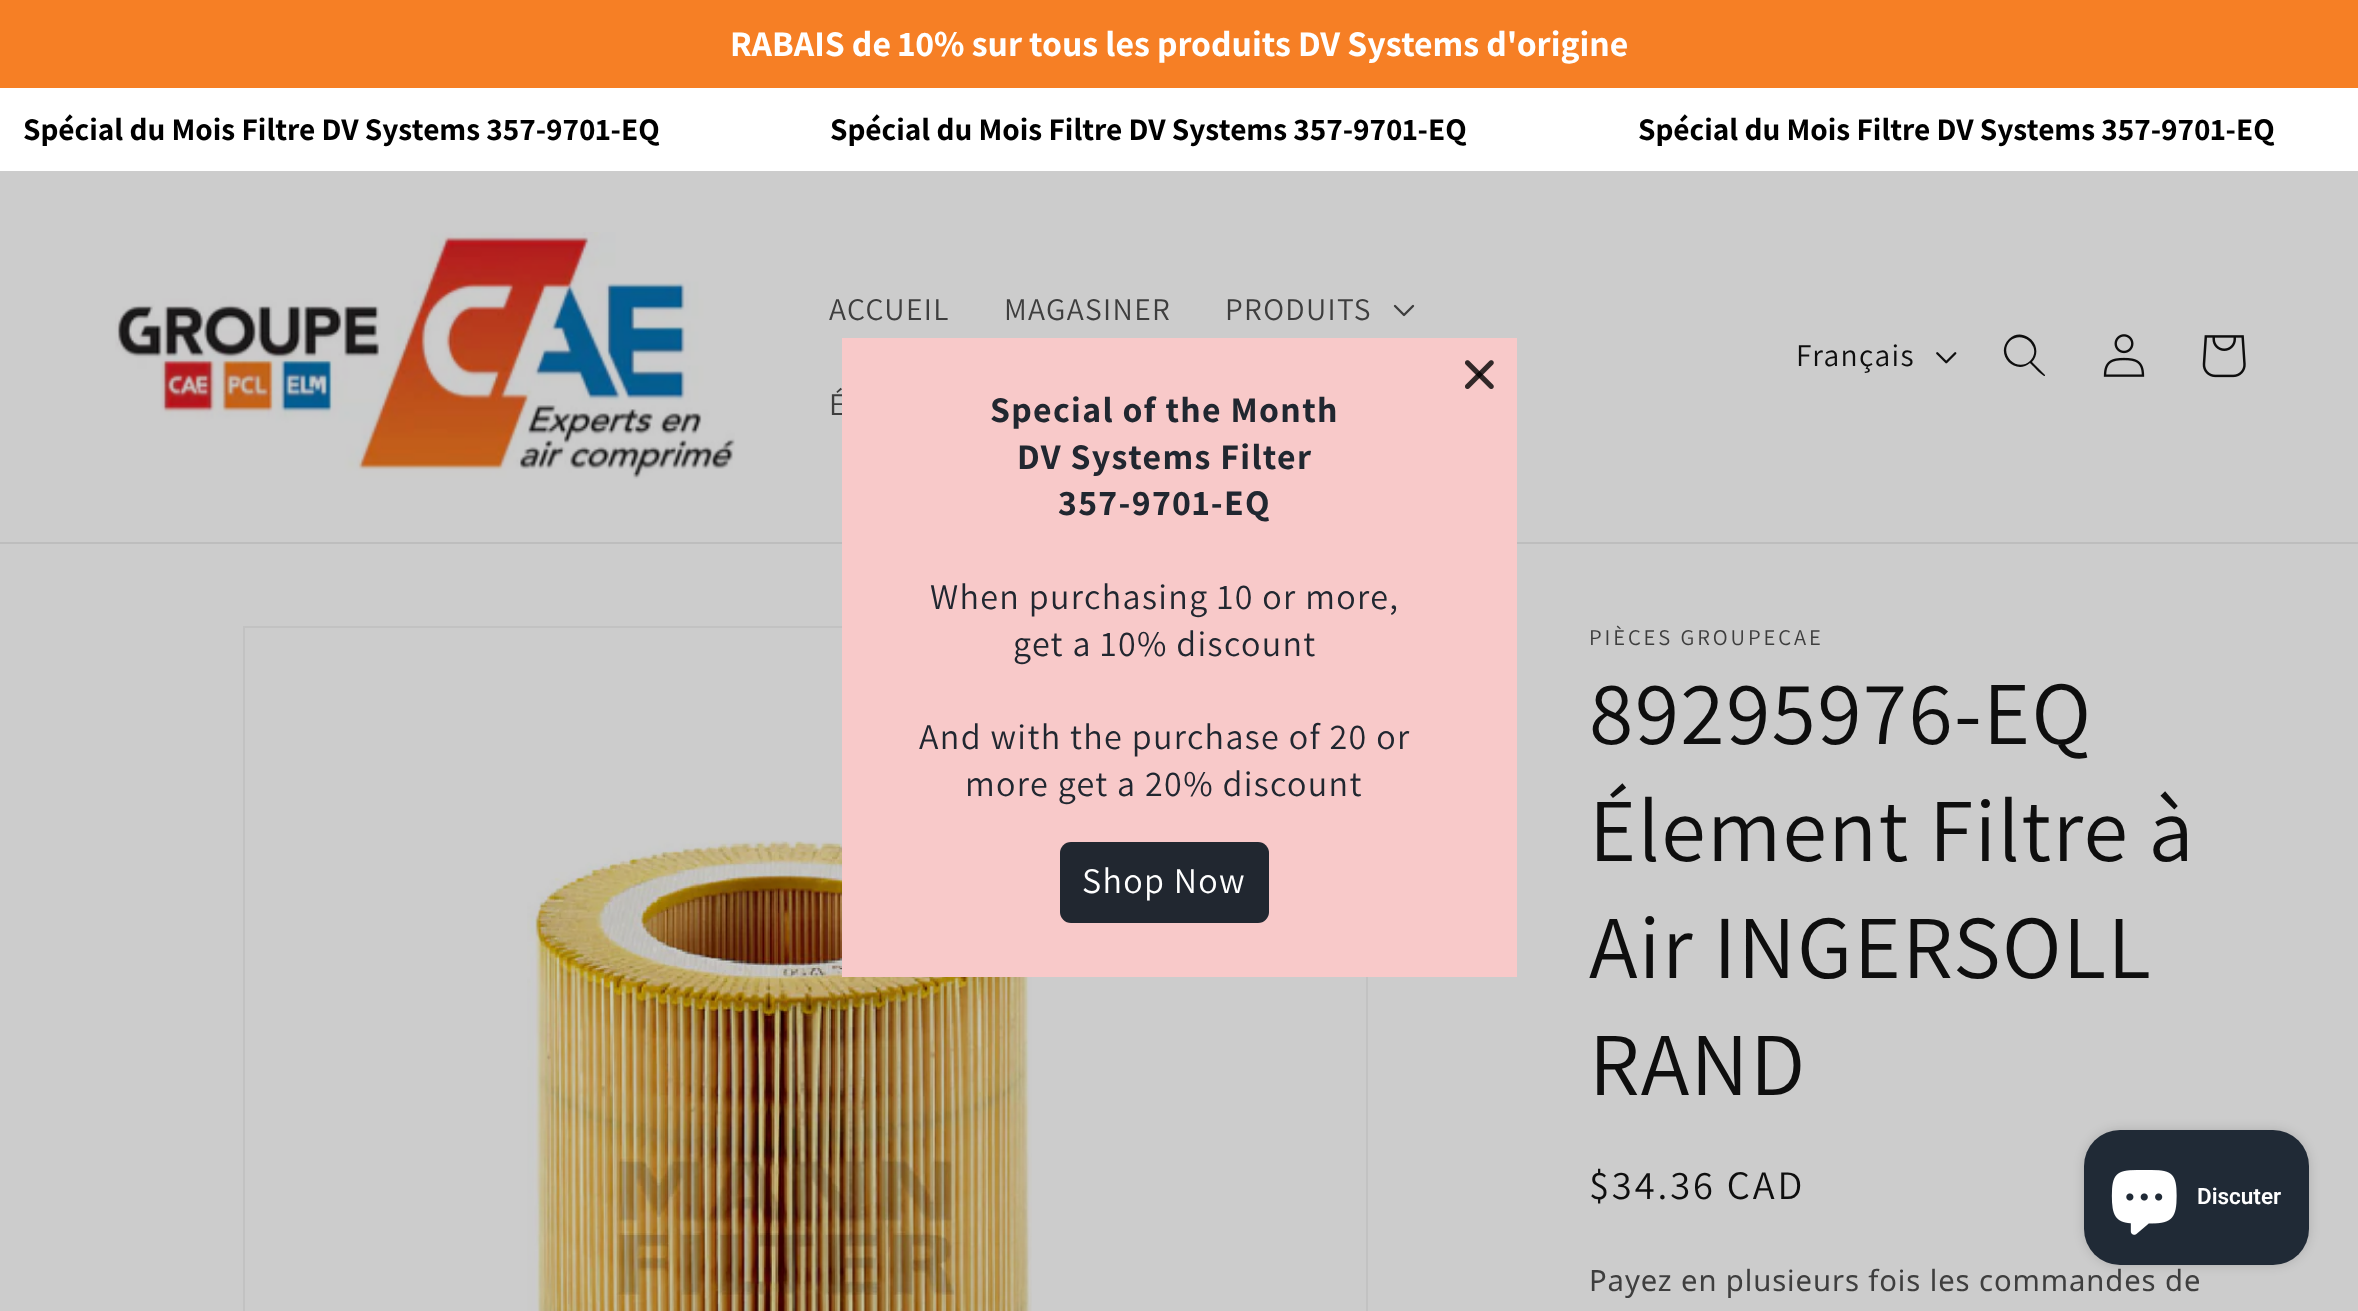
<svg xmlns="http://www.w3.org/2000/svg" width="2358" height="1311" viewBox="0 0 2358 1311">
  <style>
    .t1 { font: bold 36px Assistant; fill: #fff; }
    .t2 { font: bold 31.5px Assistant; fill: #000; }
    .t3 { font: 31.5px Assistant; letter-spacing: 1.35px; fill: #3e3e3e; }
    .t4 { font: 31.5px Assistant; letter-spacing: 1.35px; fill: #0e0e0e; }
    .t5 { font: bold 36px Assistant; letter-spacing: 1.35px; fill: #212730; }
    .t6 { font: 36px Assistant; letter-spacing: 1.35px; fill: #212730; }
    .t7 { font: 36px Assistant; letter-spacing: 1.35px; fill: #fff; }
    .t8 { font: 22.5px Assistant; letter-spacing: 2.9px; fill: #3e3e3e; }
    .t9 { font: 90px Assistant; letter-spacing: 1.35px; fill: #0e0e0e; }
    .t10 { font: 40.5px Assistant; letter-spacing: 2.9px; fill: #0e0e0e; }
    .t11 { font: 29.25px Noto Sans; letter-spacing: 0.9px; fill: #3e3e3e; }
    .t12 { font: 600 22.5px Roboto; fill: #fff; }
  </style>
  <rect width="100%" height="100%" fill="#ccc"/>
  <rect x="0" y="0" width="2358" height="88" fill="#f67f25"/>
  <text x="730" y="56" class="t1">RABAIS de 10% sur tous les produits DV Systems d'origine</text>
  <rect x="0" y="88" width="2358" height="83" fill="#fff"/>
  <text x="23" y="140" class="t2">Spécial du Mois Filtre DV Systems 357-9701-EQ</text>
  <text x="830" y="140" class="t2">Spécial du Mois Filtre DV Systems 357-9701-EQ</text>
  <text x="1638" y="140" class="t2">Spécial du Mois Filtre DV Systems 357-9701-EQ</text>
  <rect x="0" y="542" width="2358" height="2" fill="#bdbdbd"/>
  <image x="115" y="232" width="620" height="247" href="images/1.png"/>
  <text x="829" y="320" class="t3">ACCUEIL</text>
  <text x="1004" y="320" class="t3">MAGASINER</text>
  <text x="1225" y="320" class="t3">PRODUITS</text>
  <image x="1393" y="304" width="22" height="13" href="images/2.png"/>
  <text x="829" y="415" class="t3">É</text>
  <text x="1796" y="366" class="t4">Français</text>
  <image x="1936" y="352" width="21" height="12" href="images/3.png"/>
  <path d="M2030 361C2017 373 1998 354 2010 341C2023 329 2043 348 2030 361ZM2030 363C2015 376 1994 354 2009 339C2023 325 2046 346 2032 362L2045 375V376C2043 377 2032 365 2030 363Z" fill="#0e0e0e" fill-rule="evenodd"/>
  <image x="2103" y="334" width="42" height="43" href="images/4.png"/>
  <image x="2202" y="335" width="44" height="43" href="images/5.png"/>
  <rect x="244" y="627" width="1123" height="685" fill="none" stroke="#c2c2c2" stroke-width="2"/>
  <image x="527" y="840" width="505" height="471" href="images/7.png"/>
  <rect x="842" y="338" width="675" height="639" fill="#f8c9c9"/>
  <image x="1465" y="360" width="29" height="29" href="images/6.png"/>
  <text x="990" y="422" class="t5">Special of the Month</text>
  <text x="1017" y="469" class="t5">DV Systems Filter</text>
  <text x="1058" y="515" class="t5">357-9701-EQ</text>
  <text x="930" y="609" class="t6">When purchasing 10 or more,</text>
  <text x="1013" y="656" class="t6">get a 10% discount</text>
  <text x="919" y="749" class="t6">And with the purchase of 20 or</text>
  <text x="965" y="796" class="t6">more get a 20% discount</text>
  <rect x="1060" y="842" width="209" height="81" rx="11" fill="#212730"/>
  <text x="1082" y="893" class="t7">Shop Now</text>
  <text x="1589" y="645" class="t8">PIÈCES GROUPECAE</text>
  <text x="1589" y="744" class="t9">89295976-EQ</text>
  <text x="1589" y="861" class="t9">Élement Filtre à</text>
  <text x="1589" y="978" class="t9">Air INGERSOLL</text>
  <text x="1589" y="1095" class="t9">RAND</text>
  <text x="1589" y="1199" class="t10">$34.36 CAD</text>
  <text x="1589" y="1291" class="t11">Payez en plusieurs fois les commandes de</text>
  <rect x="2084" y="1130" width="225" height="135" rx="36" fill="#00000026" filter="blur(5.5px)"/>
  <rect x="2084" y="1130" width="225" height="135" rx="36" fill="#202a36"/>
  <image x="2111" y="1170" width="66" height="65" href="images/8.png"/>
  <text x="2197" y="1204" class="t12">Discuter</text>
</svg>
